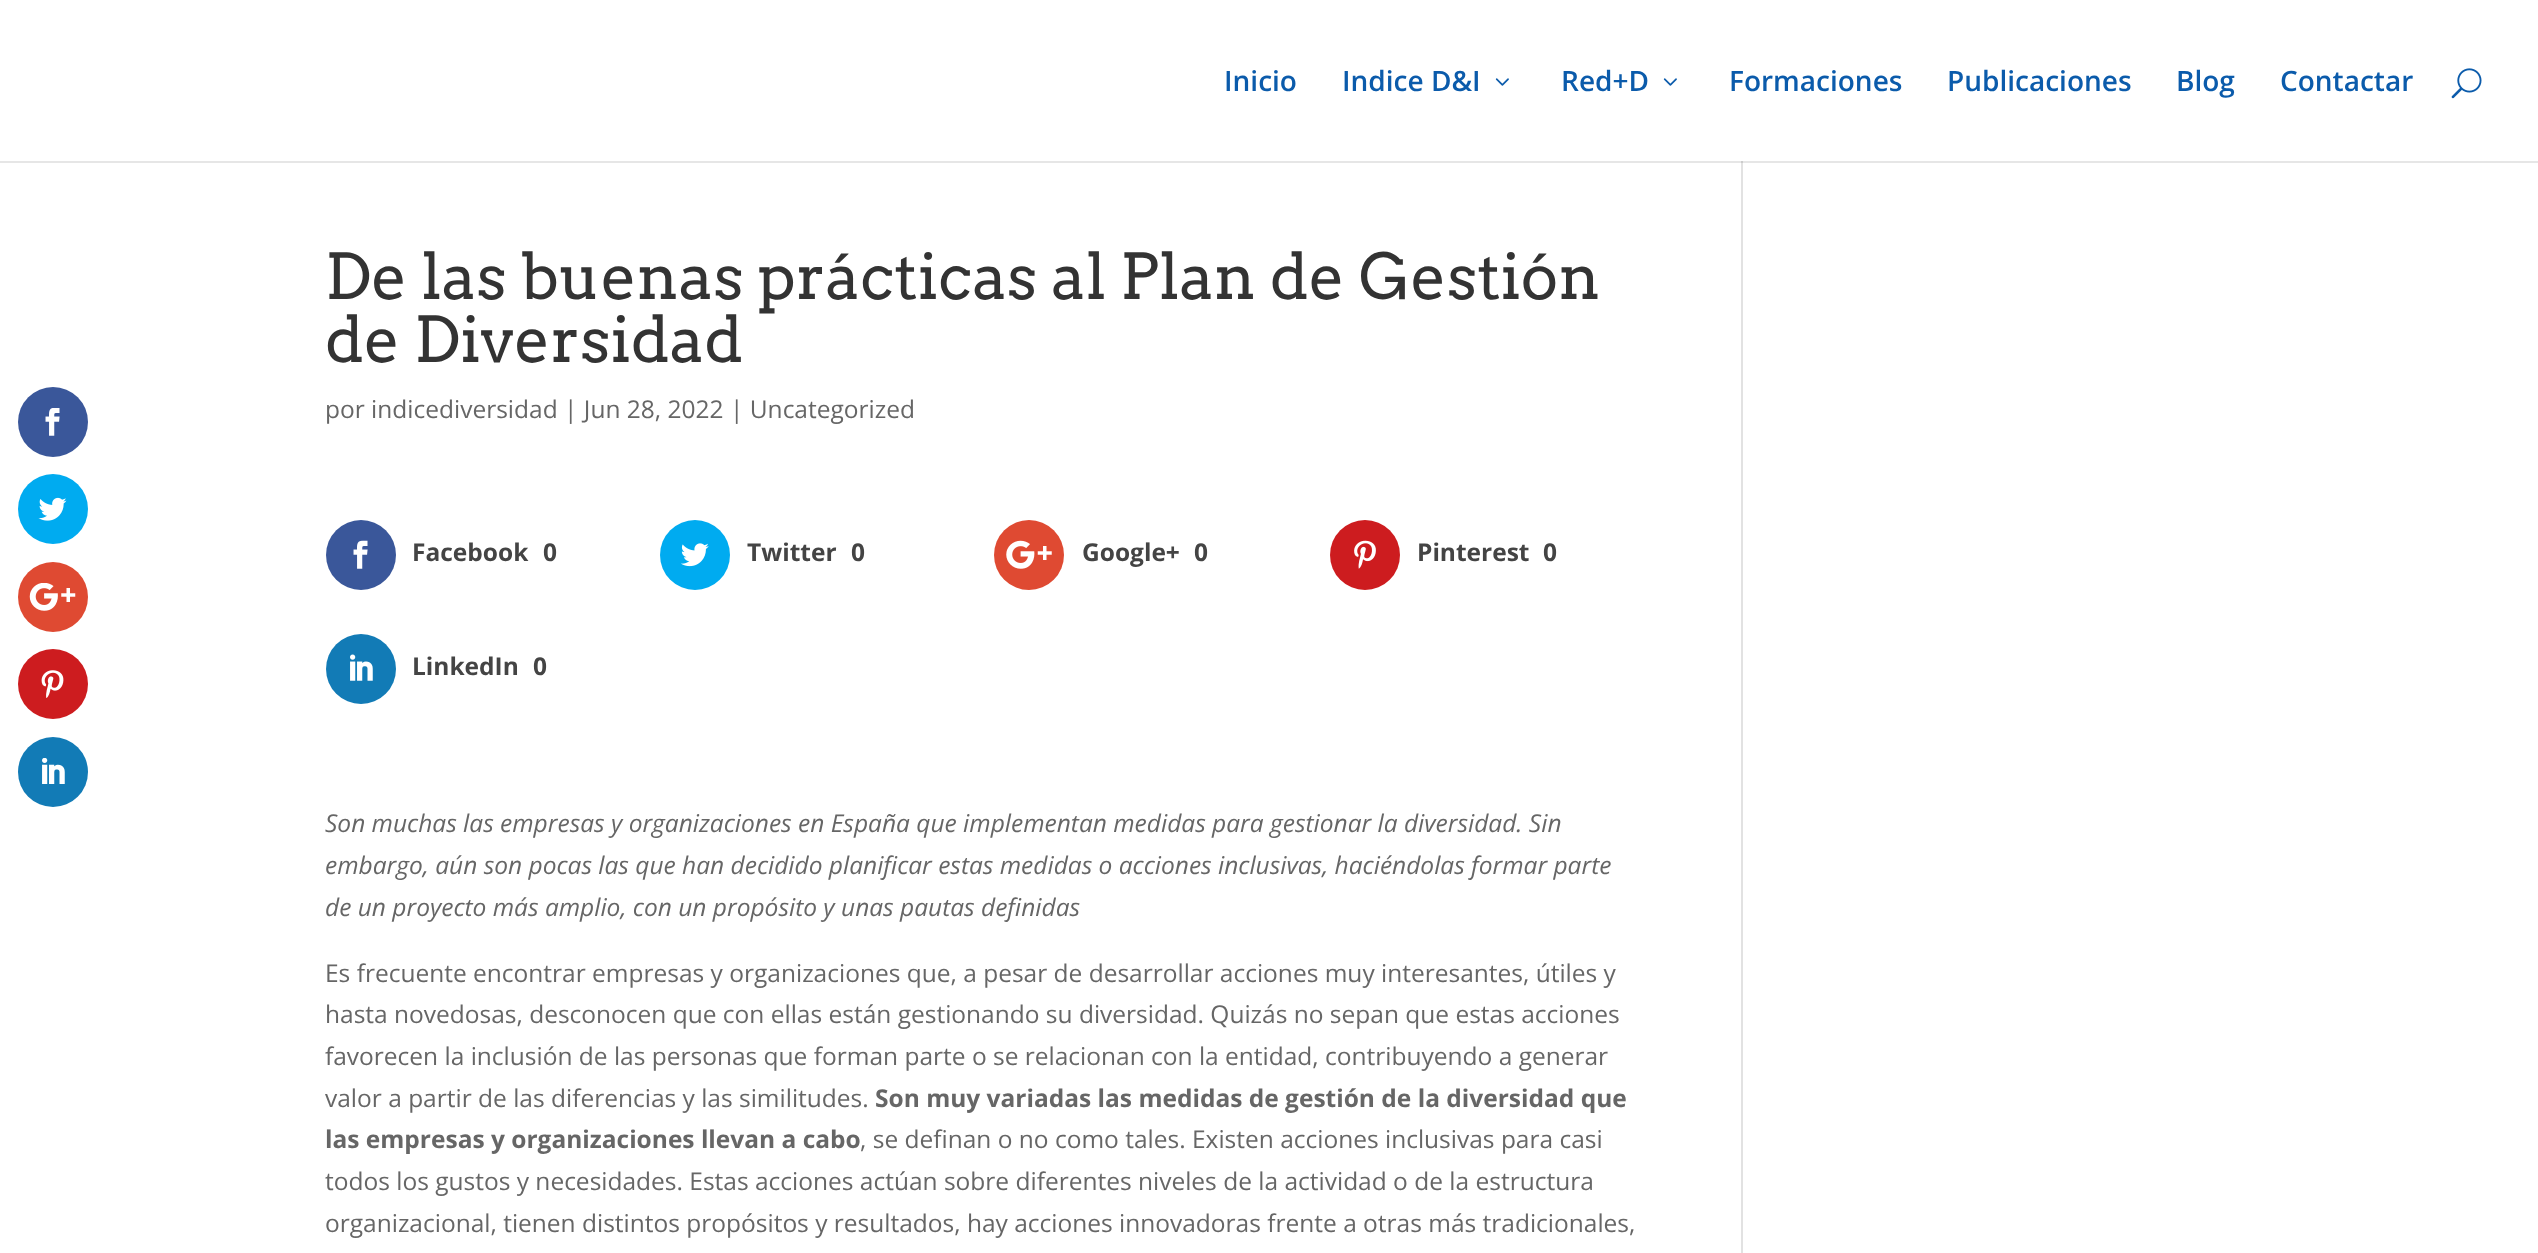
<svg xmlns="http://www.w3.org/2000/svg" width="2538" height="1253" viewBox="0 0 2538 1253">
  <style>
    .t1 { font: 600 28px Open Sans; fill: #0b5bab; }
    .t2 { font: 63px Arvo; fill: #333; }
    .t3 { font: 24.5px Open Sans; fill: #666; }
    .t4 { font: bold 24.5px Open Sans; fill: #444; }
    .t5 { font: italic 24.5px Open Sans; fill: #666; }
    .t6 { font: bold 24.5px Open Sans; fill: #666; }
  </style>
  <rect width="100%" height="100%" fill="#fff"/>
  <rect x="0" y="161" width="2538" height="2" fill="#e6e6e6"/>
  <circle cx="53" cy="422" r="35" fill="#3a579a"/>
  <image x="45" y="408" width="15" height="28" href="images/1.png"/>
  <circle cx="53" cy="509" r="35" fill="#00abf0"/>
  <image x="38" y="497" width="29" height="24" href="images/2.png"/>
  <circle cx="53" cy="597" r="35" fill="#df4a32"/>
  <image x="29" y="583" width="47" height="28" href="images/3.png"/>
  <circle cx="53" cy="684" r="35" fill="#cd1c1f"/>
  <image x="41" y="670" width="23" height="28" href="images/4.png"/>
  <circle cx="53" cy="772" r="35" fill="#127bb6"/>
  <image x="42" y="758" width="23" height="26" href="images/5.png"/>
  <text x="1224" y="91" class="t1">Inicio</text>
  <text x="1342" y="91" class="t1">Indice D&amp;I</text>
  <image x="1495" y="78" width="14" height="8" href="images/6.png"/>
  <text x="1561" y="91" class="t1">Red+D</text>
  <image x="1663" y="78" width="14" height="8" href="images/6.png"/>
  <text x="1729" y="91" class="t1">Formaciones</text>
  <text x="1947" y="91" class="t1">Publicaciones</text>
  <text x="2176" y="91" class="t1">Blog</text>
  <text x="2280" y="91" class="t1">Contactar</text>
  <image x="2451" y="68" width="31" height="31" href="images/7.png"/>
  <text x="325" y="299" class="t2">De las buenas prácticas al Plan de Gestión</text>
  <text x="325" y="362" class="t2">de Diversidad</text>
  <text x="325" y="418" class="t3">por indicediversidad | Jun 28, 2022 | Uncategorized</text>
  <circle cx="361" cy="555" r="35" fill="#3a579a"/>
  <image x="353" y="540" width="15" height="29" href="images/8.png"/>
  <text x="412" y="561" class="t4">Facebook</text>
  <text x="543" y="561" class="t4">0</text>
  <circle cx="695" cy="555" r="35" fill="#00abf0"/>
  <image x="681" y="543" width="28" height="24" href="images/9.png"/>
  <text x="747" y="561" class="t4">Twitter</text>
  <text x="851" y="561" class="t4">0</text>
  <circle cx="1029" cy="555" r="35" fill="#df4a32"/>
  <image x="1006" y="540" width="46" height="29" href="images/10.png"/>
  <text x="1082" y="561" class="t4">Google+</text>
  <text x="1194" y="561" class="t4">0</text>
  <circle cx="1365" cy="555" r="35" fill="#cd1c1f"/>
  <image x="1354" y="540" width="22" height="29" href="images/11.png"/>
  <text x="1417" y="561" class="t4">Pinterest</text>
  <text x="1543" y="561" class="t4">0</text>
  <circle cx="361" cy="669" r="35" fill="#127bb6"/>
  <image x="350" y="654" width="23" height="27" href="images/12.png"/>
  <text x="412" y="675" class="t4">LinkedIn</text>
  <text x="533" y="675" class="t4">0</text>
  <text x="325" y="832" class="t5">Son muchas las empresas y organizaciones en España que implementan medidas para gestionar la diversidad. Sin</text>
  <text x="325" y="874" class="t5">embargo, aún son pocas las que han decidido planificar estas medidas o acciones inclusivas, haciéndolas formar parte</text>
  <text x="325" y="916" class="t5">de un proyecto más amplio, con un propósito y unas pautas definidas</text>
  <text x="325" y="982" class="t3">Es frecuente encontrar empresas y organizaciones que, a pesar de desarrollar acciones muy interesantes, útiles y</text>
  <text x="325" y="1023" class="t3">hasta novedosas, desconocen que con ellas están gestionando su diversidad. Quizás no sepan que estas acciones</text>
  <text x="325" y="1065" class="t3">favorecen la inclusión de las personas que forman parte o se relacionan con la entidad, contribuyendo a generar</text>
  <text x="325" y="1107" class="t3">valor a partir de las diferencias y las similitudes.</text>
  <text x="875" y="1107" class="t6">Son muy variadas las medidas de gestión de la diversidad que</text>
  <text x="325" y="1148" class="t6">las empresas y organizaciones llevan a cabo</text>
  <text x="860" y="1148" class="t3">, se definan o no como tales. Existen acciones inclusivas para casi</text>
  <text x="325" y="1190" class="t3">todos los gustos y necesidades. Estas acciones actúan sobre diferentes niveles de la actividad o de la estructura</text>
  <text x="325" y="1232" class="t3">organizacional, tienen distintos propósitos y resultados, hay acciones innovadoras frente a otras más tradicionales,</text>
  <rect x="1741" y="163" width="2" height="1090" fill="#e2e2e2"/>
  <rect x="1741" y="161" width="2" height="2" fill="#cbcbcb"/>
</svg>
